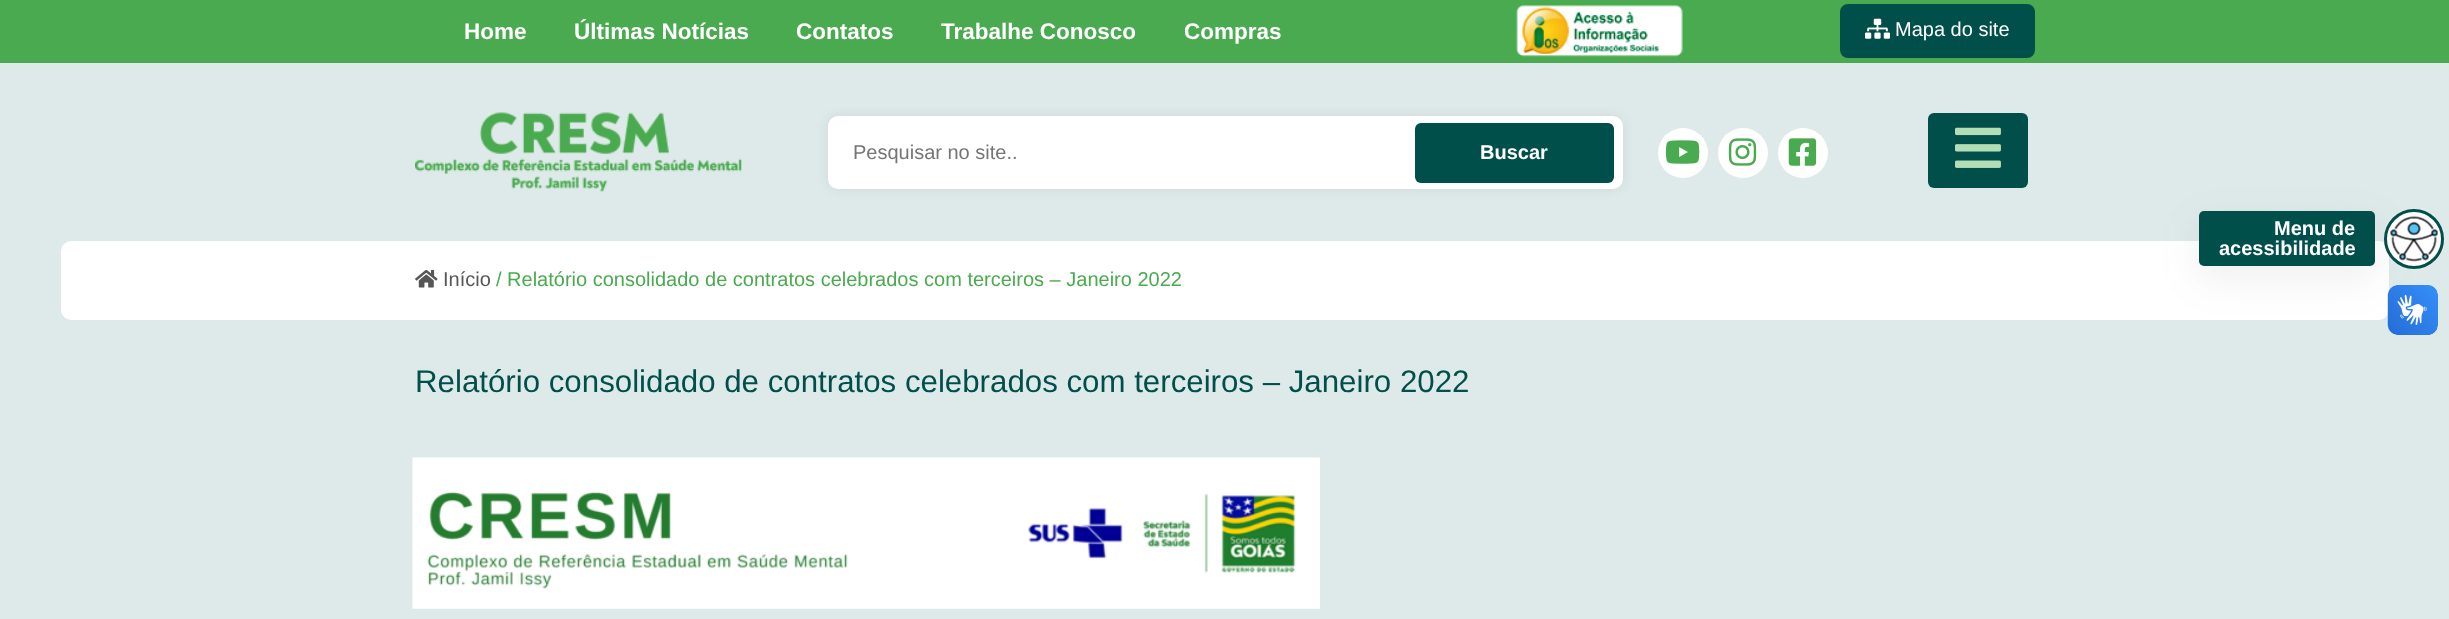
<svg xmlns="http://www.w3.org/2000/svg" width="2449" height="619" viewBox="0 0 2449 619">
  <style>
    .t1 { font: bold 22.5px Liberation Sans; fill: #fff; }
    .t2 { font: 20px Liberation Sans; fill: #fff; }
    .t3 { font: 20px Liberation Sans; fill: #757575; }
    .t4 { font: bold 20px Liberation Sans; fill: #fff; }
    .t5 { font: 20px Liberation Sans; fill: #565656; }
    .t6 { font: 20px Liberation Sans; fill: #4aaa4f; }
    .t7 { font: 31.25px Liberation Sans; fill: #004f4b; }
  </style>
  <rect width="100%" height="100%" fill="#deeae9"/>
  <rect x="0" y="0" width="2449" height="63" fill="#4aaa4f"/>
  <text x="464" y="39" class="t1">Home</text>
  <text x="574" y="39" class="t1">Últimas Notícias</text>
  <text x="796" y="39" class="t1">Contatos</text>
  <text x="941" y="39" class="t1">Trabalhe Conosco</text>
  <text x="1184" y="39" class="t1">Compras</text>
  <image x="1516" y="5" width="167" height="52" href="images/1.png"/>
  <rect x="1840" y="4" width="195" height="54" rx="8" fill="#004f4b"/>
  <image x="1865" y="18" width="25" height="21" href="images/2.png"/>
  <text x="1895" y="36" class="t2">Mapa do site</text>
  <image x="415" y="112" width="327" height="80" href="images/3.png"/>
  <rect x="828" y="116" width="795" height="73" rx="10" fill="#00000012" filter="blur(6px)"/>
  <rect x="828" y="116" width="795" height="73" rx="10" fill="#fff"/>
  <text x="853" y="159" class="t3">Pesquisar no site..</text>
  <rect x="1415" y="123" width="199" height="60" rx="6" fill="#004f4b"/>
  <text x="1480" y="159" class="t4">Buscar</text>
  <circle cx="1683" cy="153" r="25" fill="#fff"/>
  <image x="1665" y="140" width="35" height="24" href="images/4.png"/>
  <circle cx="1743" cy="153" r="25" fill="#fff"/>
  <image x="1728" y="138" width="29" height="28" href="images/5.png"/>
  <circle cx="1803" cy="153" r="25" fill="#fff"/>
  <image x="1788" y="138" width="29" height="28" href="images/6.png"/>
  <rect x="1928" y="113" width="100" height="75" rx="6" fill="#004f4b"/>
  <image x="1955" y="127" width="46" height="41" href="images/7.png"/>
  <rect x="61" y="241" width="2328" height="79" rx="10" fill="#fff"/>
  <image x="2384" y="209" width="61" height="61" href="images/8.png"/>
  <circle cx="2414" cy="239" r="28.5" fill="none" stroke="#004f4b" stroke-width="3"/>
  <rect x="2199" y="224" width="176" height="55" rx="5" fill="#6666661a" filter="blur(19px)"/>
  <rect x="2199" y="211" width="176" height="55" rx="5" fill="#004f4b"/>
  <text x="2274" y="235" class="t4">Menu de</text>
  <text x="2219" y="255" class="t4">acessibilidade</text>
  <image x="415" y="270" width="23" height="18" href="images/9.png"/>
  <text x="443" y="286" class="t5">Início</text>
  <text x="496" y="286" class="t6">/ Relatório consolidado de contratos celebrados com terceiros – Janeiro 2022</text>
  <text x="415" y="392" class="t7">Relatório consolidado de contratos celebrados com terceiros – Janeiro 2022</text>
  <image x="412" y="457" width="908" height="152" href="images/10.png"/>
  <image x="2387" y="285" width="51" height="50" href="images/11.png"/>
  <image x="2388" y="285" width="50" height="50" href="images/12.png"/>
</svg>
